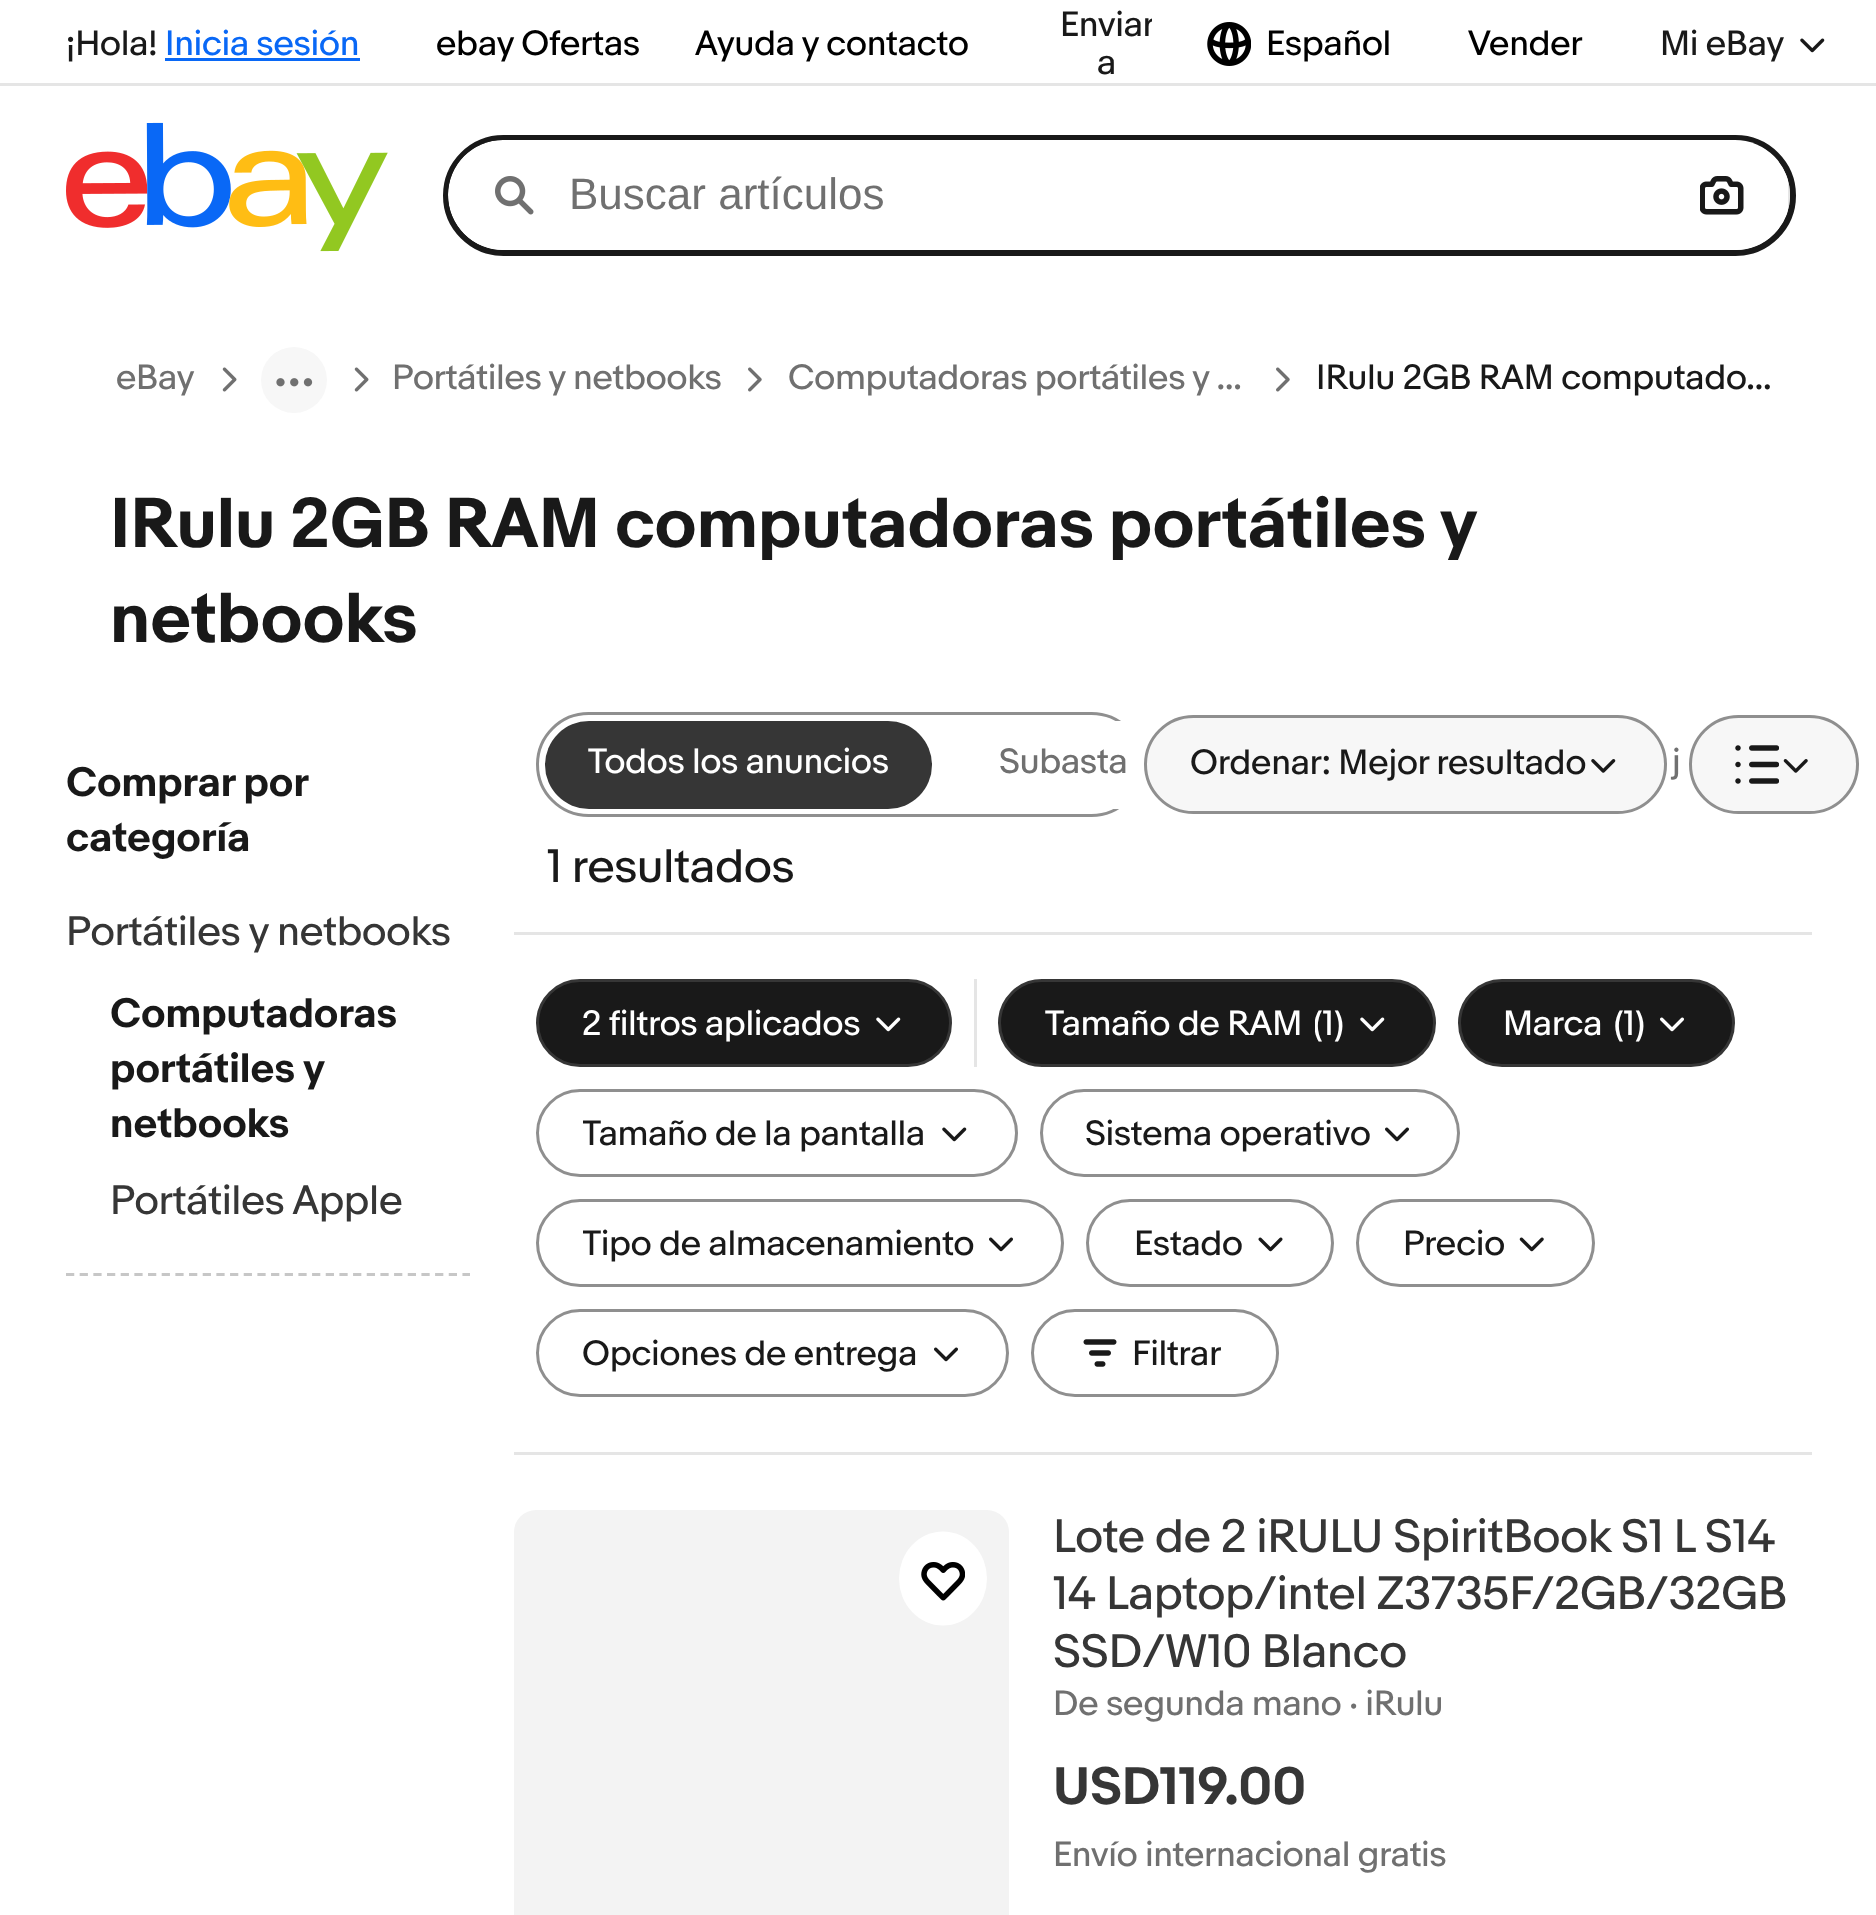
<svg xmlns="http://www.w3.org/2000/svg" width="1876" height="1915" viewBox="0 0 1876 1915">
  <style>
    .t1 { font: 33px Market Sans; fill: #191919; }
    .t2 { font: 33px Market Sans; fill: #0968f6; }
    .t3 { font: 33px Market Sans; fill: #000; }
    .t4 { font: 44px Liberation Sans; fill: #707070; }
    .t5 { font: 33px Market Sans; fill: #707070; }
    .t6 { font: bold 66px Market Sans; fill: #191919; }
    .t7 { font: bold 38.5px Market Sans; fill: #191919; }
    .t8 { font: 38.5px Market Sans; fill: #363636; }
    .t9 { font: 33px Market Sans; fill: #fff; }
    .t10 { font: 44px Market Sans; fill: #191919; }
    .t11 { font: 44px Market Sans; fill: #363636; }
    .t12 { font: bold 49.5px Market Sans; fill: #363636; }
  </style>
  <defs>
    <clipPath id="clip1"><rect x="1034" y="6" width="118" height="77"/></clipPath>
    <clipPath id="clip2"><rect x="448" y="140" width="1342" height="110" rx="55"/></clipPath>
    <clipPath id="clip3"><rect x="1315" y="1004" width="41" height="38"/></clipPath>
    <clipPath id="clip4"><rect x="583" y="1114" width="355" height="38"/></clipPath>
    <clipPath id="clip5"><rect x="583" y="1224" width="402" height="38"/></clipPath>
  </defs>
  <rect width="100%" height="100%" fill="#fff"/>
  <text x="66" y="55" class="t1">¡Hola!</text>
  <text x="165" y="55" class="t2">Inicia sesión</text>
  <rect x="165" y="58" width="195" height="3" fill="#0968f6"/>
  <text x="436" y="55" class="t3">ebay Ofertas</text>
  <text x="695" y="55" class="t3">Ayuda y contacto</text>
  <g clip-path="url(#clip1)">
    <text x="1060" y="36" class="t1">Enviar</text>
  </g>
  <text x="1097" y="74" class="t1">a</text>
  <image x="1207" y="22" width="44" height="44" href="images/1.png"/>
  <text x="1266" y="55" class="t3">Español</text>
  <text x="1468" y="55" class="t3">Vender</text>
  <text x="1660" y="55" class="t1">Mi eBay</text>
  <image x="1800" y="38" width="25" height="15" href="images/2.png"/>
  <image x="66" y="122" width="322" height="130" href="images/3.png"/>
  <rect x="446" y="138" width="1347" height="115" rx="57.5" fill="none" stroke="#191919" stroke-width="6"/>
  <g clip-path="url(#clip2)">
    <rect x="1788" y="180" width="2" height="30" fill="#e5e5e5"/>
    <path d="M503 140H1788V250H503C472.5 250 448 225.5 448 195C448 164.5 472.5 140 503 140Z" fill="#fff"/>
  </g>
  <image x="495" y="176" width="39" height="39" href="images/4.png"/>
  <text x="569" y="209" class="t4">Buscar artículos</text>
  <image x="1700" y="176" width="44" height="39" href="images/5.png"/>
  <text x="116" y="389" class="t5">eBay</text>
  <image x="222" y="367" width="15" height="25" href="images/6.png"/>
  <circle cx="294" cy="380" r="33" fill="#f7f7f7"/>
  <image x="276" y="378" width="37" height="9" href="images/7.png"/>
  <image x="354" y="367" width="15" height="25" href="images/6.png"/>
  <text x="392" y="389" class="t5">Portátiles y netbooks</text>
  <image x="748" y="367" width="14" height="25" href="images/8.png"/>
  <text x="788" y="389" class="t5">Computadoras portátiles y …</text>
  <image x="1276" y="367" width="14" height="25" href="images/8.png"/>
  <text x="1316" y="389" class="t1">IRulu 2GB RAM computado…</text>
  <text x="110" y="547" word-spacing="-0.25" class="t6">IRulu 2GB RAM computadoras portátiles y</text>
  <text x="110" y="642" class="t6">netbooks</text>
  <path d="M66 1274.5H470" fill="none" stroke="#c7c7c7" stroke-width="2.8" stroke-dasharray="8.25 5.42"/>
  <text x="66" y="796" word-spacing="-1" class="t7">Comprar por</text>
  <text x="66" y="851" class="t7">categoría</text>
  <text x="66" y="945" class="t8">Portátiles y netbooks</text>
  <text x="110" y="1027" class="t7">Computadoras</text>
  <text x="110" y="1082" class="t7">portátiles y</text>
  <text x="110" y="1137" class="t7">netbooks</text>
  <text x="110" y="1214" class="t8">Portátiles Apple</text>
  <rect x="514" y="932" width="1298" height="3" fill="#e5e5e5"/>
  <rect x="537.5" y="713.5" width="605" height="102" rx="51" fill="none" stroke="#8f8f8f" stroke-width="3"/>
  <rect x="545" y="721" width="387" height="88" rx="44" fill="#363636"/>
  <text x="588" y="773" class="t9">Todos los anuncios</text>
  <rect x="954" y="721" width="218" height="88" rx="44" fill="#fff"/>
  <text x="999" y="773" class="t5">Subasta</text>
  <text x="1672" y="773" class="t5">j</text>
  <rect x="1145.5" y="716.5" width="520" height="96" rx="48" fill="#f7f7f7" stroke="#8f8f8f" stroke-width="3"/>
  <text x="1190" y="774" class="t1">Ordenar: Mejor resultado</text>
  <image x="1591" y="759" width="25" height="14" href="images/9.png"/>
  <rect x="1690.5" y="716.5" width="167" height="96" rx="48" fill="#f7f7f7" stroke="#8f8f8f" stroke-width="3"/>
  <image x="1735" y="745" width="44" height="39" href="images/10.png"/>
  <image x="1783" y="759" width="25" height="14" href="images/11.png"/>
  <text x="547" y="882" class="t10">1 resultados</text>
  <rect x="514" y="1452" width="1298" height="3" fill="#e5e5e5"/>
  <rect x="974" y="979" width="3" height="88" fill="#e5e5e5"/>
  <rect x="537.5" y="980.5" width="413" height="85" rx="42.5" fill="#191919" stroke="#363636" stroke-width="3"/>
  <text x="582" y="1035" class="t9">2 filtros aplicados</text>
  <image x="876" y="1017" width="25" height="15" href="images/12.png"/>
  <rect x="999.5" y="980.5" width="435" height="85" rx="42.5" fill="#191919" stroke="#363636" stroke-width="3"/>
  <text x="1045" y="1035" class="t9">Tamaño de RAM</text>
  <g clip-path="url(#clip3)">
    <text x="1313" y="1035" class="t9">(1)</text>
  </g>
  <image x="1360" y="1017" width="25" height="15" href="images/12.png"/>
  <rect x="1459.5" y="980.5" width="274" height="85" rx="42.5" fill="#191919" stroke="#363636" stroke-width="3"/>
  <text x="1503" y="1035" class="t9">Marca</text>
  <text x="1614" y="1035" class="t9">(1)</text>
  <image x="1660" y="1017" width="24" height="15" href="images/13.png"/>
  <rect x="537.5" y="1090.5" width="479" height="85" rx="42.5" fill="none" stroke="#8f8f8f" stroke-width="3"/>
  <g clip-path="url(#clip4)">
    <text x="582" y="1145" class="t1">Tamaño de la pantalla</text>
  </g>
  <image x="942" y="1127" width="25" height="15" href="images/2.png"/>
  <rect x="1041.5" y="1090.5" width="417" height="85" rx="42.5" fill="none" stroke="#8f8f8f" stroke-width="3"/>
  <text x="1085" y="1145" class="t1">Sistema operativo</text>
  <image x="1385" y="1127" width="24" height="15" href="images/14.png"/>
  <rect x="537.5" y="1200.5" width="525" height="85" rx="42.5" fill="none" stroke="#8f8f8f" stroke-width="3"/>
  <g clip-path="url(#clip5)">
    <text x="582" y="1255" class="t1">Tipo de almacenamiento</text>
  </g>
  <image x="989" y="1237" width="24" height="15" href="images/14.png"/>
  <rect x="1087.5" y="1200.5" width="245" height="85" rx="42.5" fill="none" stroke="#8f8f8f" stroke-width="3"/>
  <text x="1134" y="1255" class="t1">Estado</text>
  <image x="1258" y="1237" width="25" height="15" href="images/15.png"/>
  <rect x="1357.5" y="1200.5" width="236" height="85" rx="42.5" fill="none" stroke="#8f8f8f" stroke-width="3"/>
  <text x="1403" y="1255" class="t1">Precio</text>
  <image x="1519" y="1237" width="25" height="15" href="images/16.png"/>
  <rect x="537.5" y="1310.5" width="470" height="85" rx="42.5" fill="none" stroke="#8f8f8f" stroke-width="3"/>
  <text x="582" y="1365" class="t1">Opciones de entrega</text>
  <image x="934" y="1347" width="24" height="15" href="images/14.png"/>
  <rect x="1032.5" y="1310.5" width="245" height="85" rx="42.5" fill="none" stroke="#8f8f8f" stroke-width="3"/>
  <image x="1083" y="1339" width="34" height="28" href="images/17.png"/>
  <text x="1132" y="1365" class="t1">Filtrar</text>
  <rect x="514" y="1510" width="495" height="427" rx="22" fill="#f3f3f3"/>
  <ellipse cx="943" cy="1578.5" rx="44" ry="47" fill="#fff"/>
  <image x="921" y="1562" width="44" height="39" href="images/18.png"/>
  <text x="1053" y="1552" class="t11">Lote de 2 iRULU SpiritBook S1 L S14</text>
  <text x="1053" y="1609" class="t11">14 Laptop/intel Z3735F/2GB/32GB</text>
  <text x="1053" y="1667" class="t11">SSD/W10 Blanco</text>
  <text x="1053" y="1715" class="t5">De segunda mano · iRulu</text>
  <text x="1053" y="1804" class="t12">USD119.00</text>
  <text x="1053" y="1866" class="t5">Envío internacional gratis</text>
  <rect x="0" y="83" width="1876" height="3" fill="#e5e5e5"/>
</svg>
